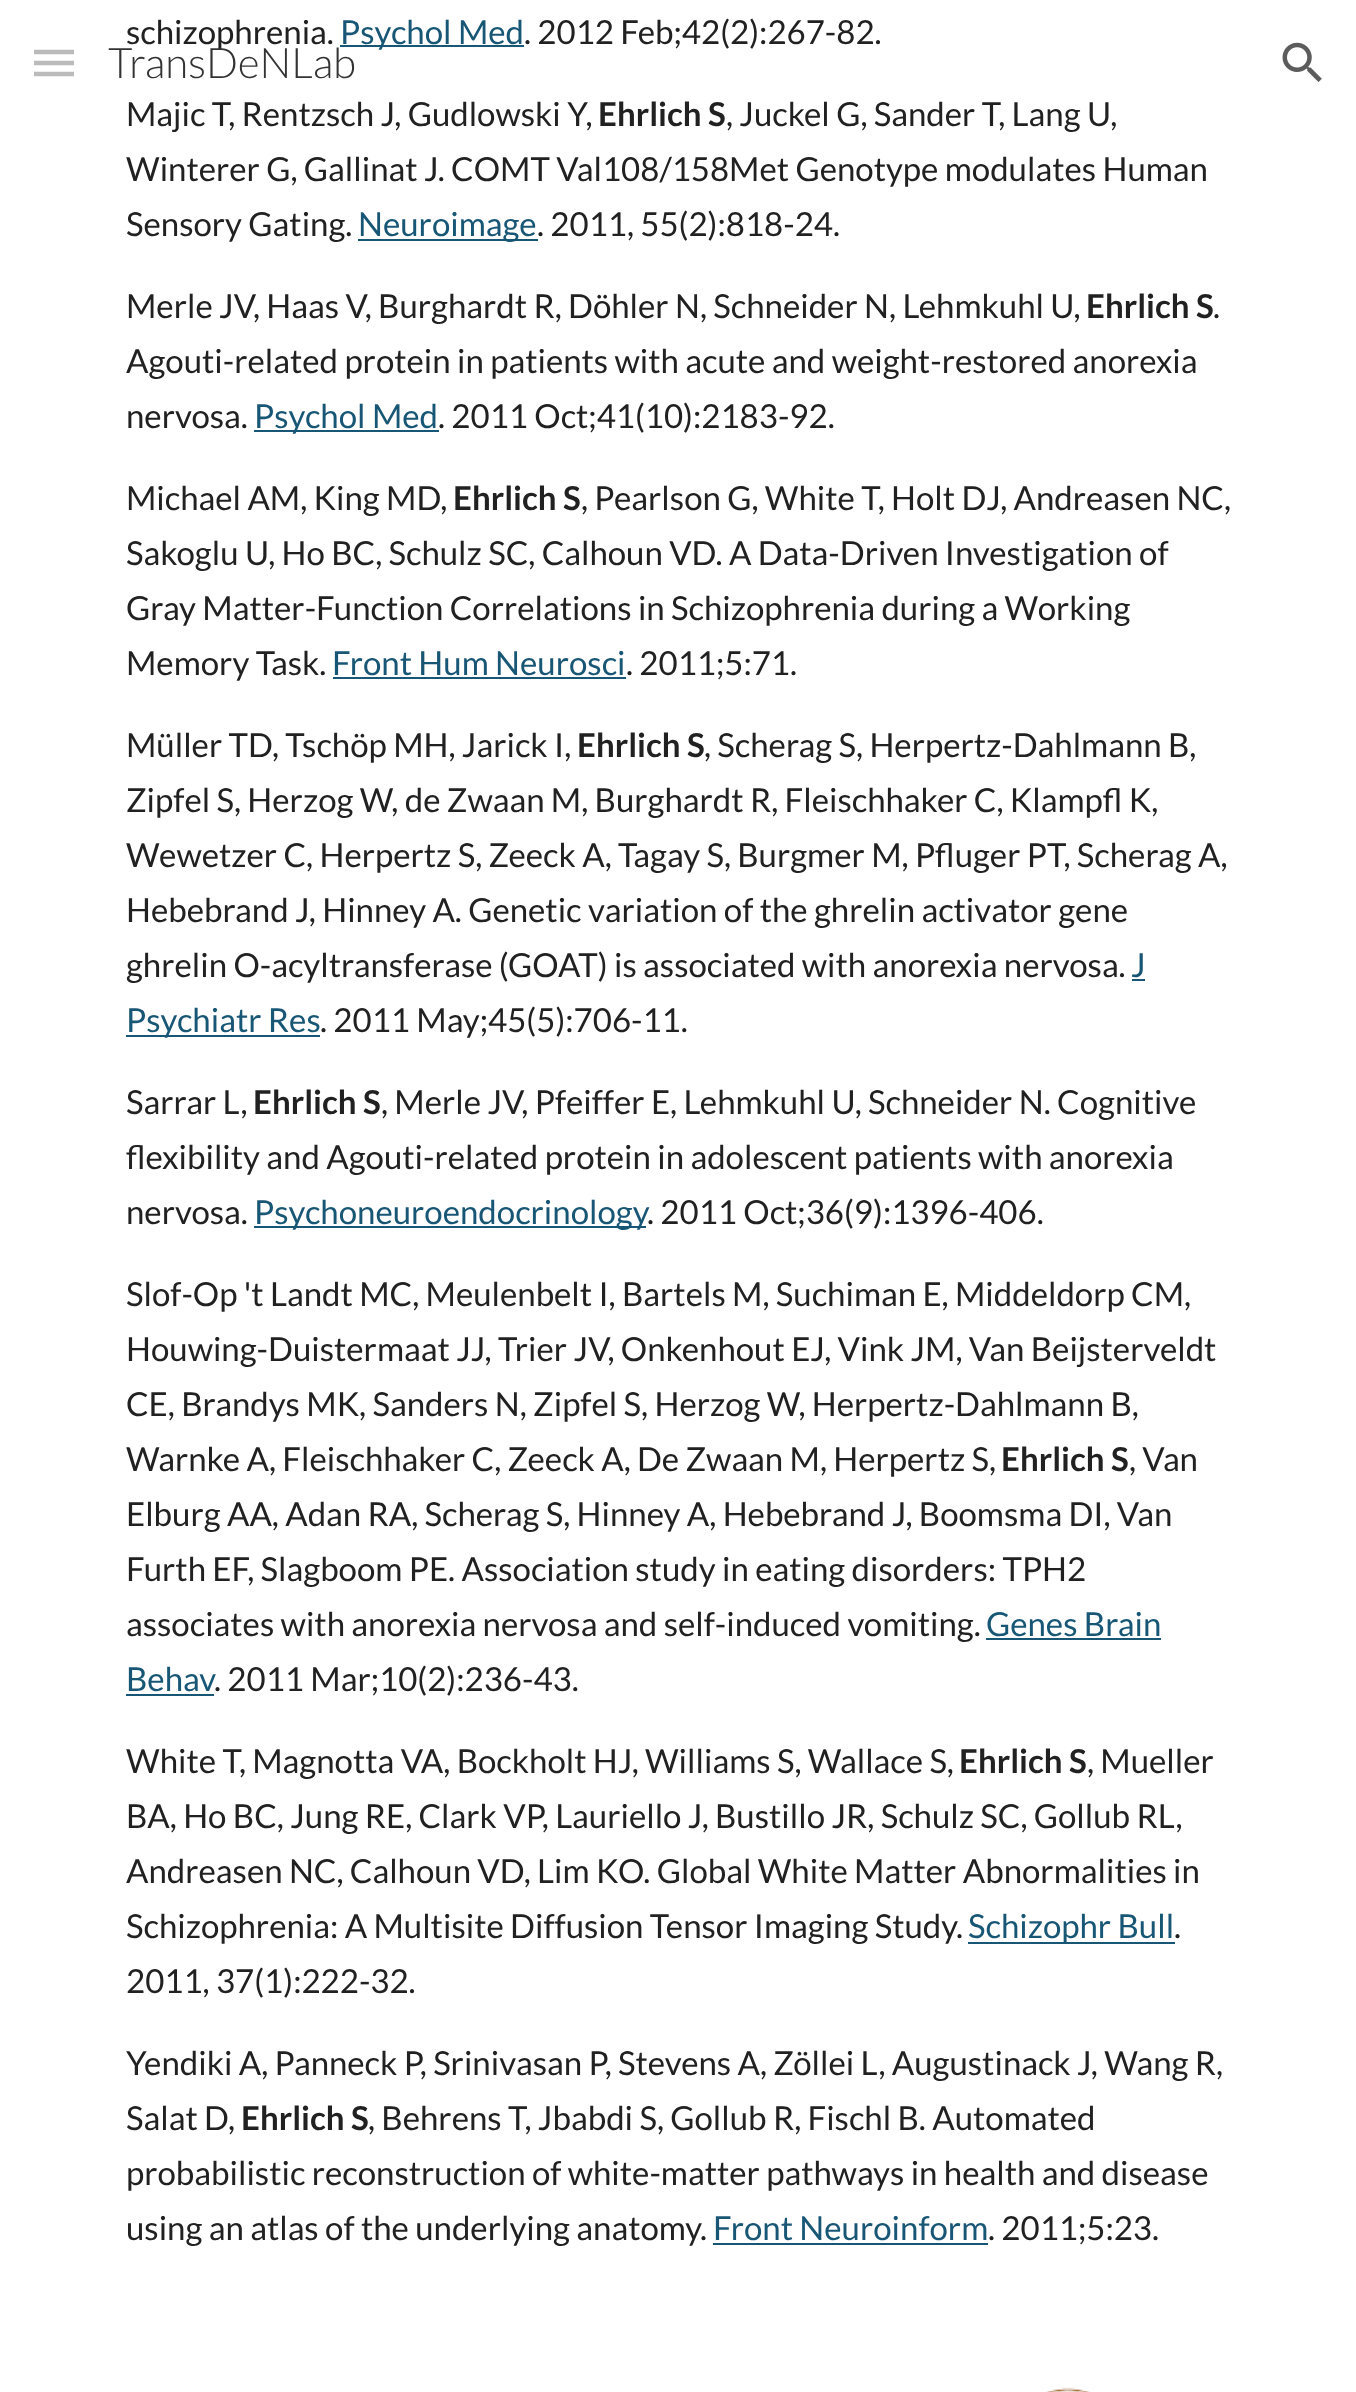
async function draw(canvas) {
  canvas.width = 1356;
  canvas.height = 2392;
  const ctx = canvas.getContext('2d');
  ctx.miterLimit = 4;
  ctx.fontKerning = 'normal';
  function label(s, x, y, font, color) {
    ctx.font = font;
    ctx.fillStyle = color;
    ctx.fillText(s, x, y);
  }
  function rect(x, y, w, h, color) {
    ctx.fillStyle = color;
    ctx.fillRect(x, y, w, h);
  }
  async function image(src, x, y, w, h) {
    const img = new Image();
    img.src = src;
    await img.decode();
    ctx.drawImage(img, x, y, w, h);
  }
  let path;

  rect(0, 0, 1356, 2392, '#fff');
  label('schizophrenia.', 126, 44, '33px Lato', '#212121');
  rect(340, 45, 184, 2, '#185676');
  label('Psychol Med', 340, 44, '33px Lato', '#185676');
  label('. 2012 Feb;42(2):267-82.', 524, 44, '33px Lato', '#212121');
  label('Majic T, Rentzsch J, Gudlowski Y,', 126, 126, '33px Lato', '#212121');
  label('Ehrlich S', 598, 126, 'bold 33px Lato', '#212121');
  label(', Juckel G, Sander T, Lang U,', 726, 126, '33px Lato', '#212121');
  label('Winterer G, Gallinat J. COMT Val108/158Met Genotype modulates Human', 126, 181, '33px Lato', '#212121');
  label('Sensory Gating.', 126, 236, '33px Lato', '#212121');
  rect(358, 239, 180, 2, '#185676');
  label('Neuroimage', 358, 236, '33px Lato', '#185676');
  label('. 2011, 55(2):818-24.', 537, 236, '33px Lato', '#212121');
  label('Merle JV, Haas V, Burghardt R, Döhler N, Schneider N, Lehmkuhl U,', 126, 318, '33px Lato', '#212121');
  label('Ehrlich S', 1086, 318, 'bold 33px Lato', '#212121');
  label('.', 1213, 318, '33px Lato', '#212121');
  label('Agouti-related protein in patients with acute and weight-restored anorexia', 126, 373, '33px Lato', '#212121');
  label('nervosa.', 126, 428, '33px Lato', '#212121');
  rect(254, 430, 185, 2, '#185676');
  label('Psychol Med', 254, 428, '33px Lato', '#185676');
  label('. 2011 Oct;41(10):2183-92.', 438, 428, '33px Lato', '#212121');
  label('Michael AM, King MD,', 126, 510, '33px Lato', '#212121');
  label('Ehrlich S', 453, 510, 'bold 33px Lato', '#212121');
  label(', Pearlson G, White T, Holt DJ, Andreasen NC,', 581, 510, '33px Lato', '#212121');
  label('Sakoglu U, Ho BC, Schulz SC, Calhoun VD. A Data-Driven Investigation of', 126, 565, '33px Lato', '#212121');
  label('Gray Matter-Function Correlations in Schizophrenia during a Working', 126, 620, '33px Lato', '#212121');
  label('Memory Task.', 126, 675, '33px Lato', '#212121');
  label('Front Hum Neurosci', 332, 675, '33px Lato', '#185676');
  rect(333, 677, 293, 2, '#185676');
  label('. 2011;5:71.', 626, 675, '33px Lato', '#212121');
  label('Müller TD, Tschöp MH, Jarick I,', 126, 757, '33px Lato', '#212121');
  label('Ehrlich S', 577, 757, 'bold 33px Lato', '#212121');
  label(', Scherag S, Herpertz-Dahlmann B,', 704, 757, '33px Lato', '#212121');
  label('Zipfel S, Herzog W, de Zwaan M, Burghardt R, Fleischhaker C, Klampfl K,', 126, 812, '33px Lato', '#212121');
  label('Wewetzer C, Herpertz S, Zeeck A, Tagay S, Burgmer M, Pfluger PT, Scherag A,', 126, 867, '33px Lato', '#212121');
  label('Hebebrand J, Hinney A. Genetic variation of the ghrelin activator gene', 126, 922, '33px Lato', '#212121');
  label('ghrelin O-acyltransferase (GOAT) is associated with anorexia nervosa.', 126, 977, '33px Lato', '#212121');
  label('J', 1131, 977, '33px Lato', '#185676');
  rect(1132, 979, 13, 2, '#185676');
  rect(126, 1035, 194, 2, '#185676');
  label('Psychiatr Res', 126, 1032, '33px Lato', '#185676');
  label('. 2011 May;45(5):706-11.', 320, 1032, '33px Lato', '#212121');
  label('Sarrar L,', 126, 1114, '33px Lato', '#212121');
  label('Ehrlich S', 253, 1114, 'bold 33px Lato', '#212121');
  label(', Merle JV, Pfeiffer E, Lehmkuhl U, Schneider N. Cognitive', 381, 1114, '33px Lato', '#212121');
  label('flexibility and Agouti-related protein in adolescent patients with anorexia', 126, 1169, '33px Lato', '#212121');
  label('nervosa.', 126, 1224, '33px Lato', '#212121');
  rect(254, 1226, 392, 2, '#185676');
  label('Psychoneuroendocrinology', 254, 1224, '33px Lato', '#185676');
  label('. 2011 Oct;36(9):1396-406.', 647, 1224, '33px Lato', '#212121');
  label('Slof-Op \'t Landt MC, Meulenbelt I, Bartels M, Suchiman E, Middeldorp CM,', 126, 1306, '33px Lato', '#212121');
  label('Houwing-Duistermaat JJ, Trier JV, Onkenhout EJ, Vink JM, Van Beijsterveldt', 126, 1361, '33px Lato', '#212121');
  label('CE, Brandys MK, Sanders N, Zipfel S, Herzog W, Herpertz-Dahlmann B,', 126, 1416, '33px Lato', '#212121');
  label('Warnke A, Fleischhaker C, Zeeck A, De Zwaan M, Herpertz S,', 126, 1471, '33px Lato', '#212121');
  label('Ehrlich S', 1001, 1471, 'bold 33px Lato', '#212121');
  label(', Van', 1129, 1471, '33px Lato', '#212121');
  label('Elburg AA, Adan RA, Scherag S, Hinney A, Hebebrand J, Boomsma DI, Van', 126, 1526, '33px Lato', '#212121');
  label('Furth EF, Slagboom PE. Association study in eating disorders: TPH2', 126, 1581, '33px Lato', '#212121');
  label('associates with anorexia nervosa and self-induced vomiting.', 126, 1636, '33px Lato', '#212121');
  label('Genes Brain', 986, 1636, '33px Lato', '#185676');
  rect(986, 1638, 175, 2, '#185676');
  label('Behav', 126, 1691, '33px Lato', '#185676');
  rect(126, 1694, 88, 2, '#185676');
  label('. 2011 Mar;10(2):236-43.', 214, 1691, '33px Lato', '#212121');
  label('White T, Magnotta VA, Bockholt HJ, Williams S, Wallace S,', 126, 1773, '33px Lato', '#212121');
  label('Ehrlich S', 959, 1773, 'bold 33px Lato', '#212121');
  label(', Mueller', 1087, 1773, '33px Lato', '#212121');
  label('BA, Ho BC, Jung RE, Clark VP, Lauriello J, Bustillo JR, Schulz SC, Gollub RL,', 126, 1828, '33px Lato', '#212121');
  label('Andreasen NC, Calhoun VD, Lim KO. Global White Matter Abnormalities in', 126, 1883, '33px Lato', '#212121');
  label('Schizophrenia: A Multisite Diffusion Tensor Imaging Study.', 126, 1938, '33px Lato', '#212121');
  rect(968, 1942, 207, 2, '#185676');
  label('Schizophr Bull', 968, 1938, '33px Lato', '#185676');
  label('.', 1174, 1938, '33px Lato', '#212121');
  label('2011, 37(1):222-32.', 126, 1993, '33px Lato', '#212121');
  label('Yendiki A, Panneck P, Srinivasan P, Stevens A, Zöllei L, Augustinack J, Wang R,', 126, 2075, '33px Lato', '#212121');
  label('Salat D,', 126, 2130, '33px Lato', '#212121');
  label('Ehrlich S', 241, 2130, 'bold 33px Lato', '#212121');
  label(', Behrens T, Jbabdi S, Gollub R, Fischl B. Automated', 368, 2130, '33px Lato', '#212121');
  label('probabilistic reconstruction of white-matter pathways in health and disease', 126, 2185, '33px Lato', '#212121');
  label('using an atlas of the underlying anatomy.', 126, 2240, '33px Lato', '#212121');
  label('Front Neuroinform', 713, 2240, '33px Lato', '#185676');
  rect(713, 2243, 275, 2, '#185676');
  label('. 2011;5:23.', 988, 2240, '33px Lato', '#212121');
  path = new Path2D('M34 52H74M34 63H74M34 74H74');
  ctx.strokeStyle = '#bbb';
  ctx.lineWidth = 4.5;
  ctx.stroke(path);
  label('TransDeNLab', 108, 78, '300 42px Lato', '#333');
  await image('assets/img1.png', 1282, 42, 40, 40);
  await image('assets/img2.png', 1046, 2387, 44, 5);
}

draw(document.querySelector('canvas'));
